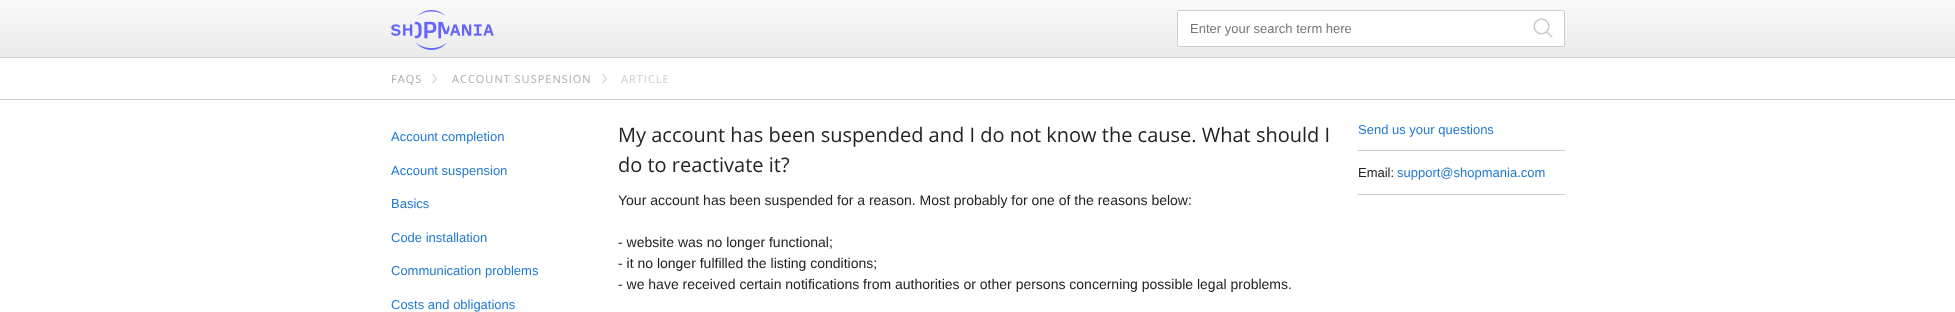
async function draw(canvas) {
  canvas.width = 1955;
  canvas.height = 312;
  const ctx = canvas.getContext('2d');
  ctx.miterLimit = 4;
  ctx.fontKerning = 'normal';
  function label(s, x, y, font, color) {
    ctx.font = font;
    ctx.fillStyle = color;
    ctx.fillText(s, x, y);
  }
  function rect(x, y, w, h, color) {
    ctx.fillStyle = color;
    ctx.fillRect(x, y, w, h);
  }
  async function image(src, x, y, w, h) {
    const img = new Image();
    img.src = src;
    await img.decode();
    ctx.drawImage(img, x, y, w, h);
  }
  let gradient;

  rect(0, 0, 1955, 312, '#fff');
  gradient = ctx.createLinearGradient(978, 0, 978, 57);
  gradient.addColorStop(0, '#fafafa');
  gradient.addColorStop(1, '#eaeaea');
  ctx.fillStyle = gradient;
  ctx.fillRect(0, 0, 1955, 57);
  rect(0, 57, 1955, 1, '#ccc');
  await image('assets/img1.png', 391, 10, 103, 40);
  ctx.fillStyle = '#fff';
  ctx.beginPath();
  ctx.roundRect(1177.5, 10.5, 387, 36, 1.5);
  ctx.fill();
  ctx.strokeStyle = '#ccc';
  ctx.stroke();
  label('Enter your search term here', 1190, 33, '13px Liberation Sans', '#757575');
  await image('assets/img2.png', 1533, 18, 20, 20);
  rect(0, 99, 1955, 1, '#ccc');
  ctx.letterSpacing = '1px';
  label('FAQS', 391, 83, '11px Open Sans', '#aaa');
  ctx.letterSpacing = '3px';
  label('›', 431, 85, '24px Open Sans', '#ddd');
  ctx.letterSpacing = '1px';
  label('ACCOUNT SUSPENSION', 452, 83, '11px Open Sans', '#aaa');
  ctx.letterSpacing = '3px';
  label('›', 601, 85, '24px Open Sans', '#ddd');
  ctx.letterSpacing = '1px';
  label('ARTICLE', 621, 83, '11px Open Sans', '#ccc');
  ctx.letterSpacing = '0px';
  label('Account completion', 391, 141, '13px Liberation Sans', '#2079d2');
  label('Account suspension', 391, 175, '13px Liberation Sans', '#2079d2');
  label('Basics', 391, 208, '13px Liberation Sans', '#2079d2');
  label('Code installation', 391, 242, '13px Liberation Sans', '#2079d2');
  label('Communication problems', 391, 275, '13px Liberation Sans', '#2079d2');
  label('Costs and obligations', 391, 309, '13px Liberation Sans', '#2079d2');
  label('My account has been suspended and I do not know the cause. What should I', 618, 142, '20px Open Sans', '#222');
  label('do to reactivate it?', 618, 172, '20px Open Sans', '#222');
  label('Your account has been suspended for a reason. Most probably for one of the reasons below:', 618, 205, '14px Liberation Sans', '#222');
  label('- website was no longer functional;', 618, 247, '14px Liberation Sans', '#222');
  label('- it no longer fulfilled the listing conditions;', 618, 268, '14px Liberation Sans', '#222');
  label('- we have received certain notifications from authorities or other persons concerning possible legal problems.', 618, 289, '14px Liberation Sans', '#222');
  label('Send us your questions', 1358, 134, '13px Liberation Sans', '#2079d2');
  rect(1358, 150, 207, 1, '#ccc');
  rect(1358, 194, 207, 1, '#ccc');
  label('Email:', 1358, 177, '13px Liberation Sans', '#222');
  label('support@shopmania.com', 1397, 177, '13px Liberation Sans', '#2079d2');
}

draw(document.querySelector('canvas'));
